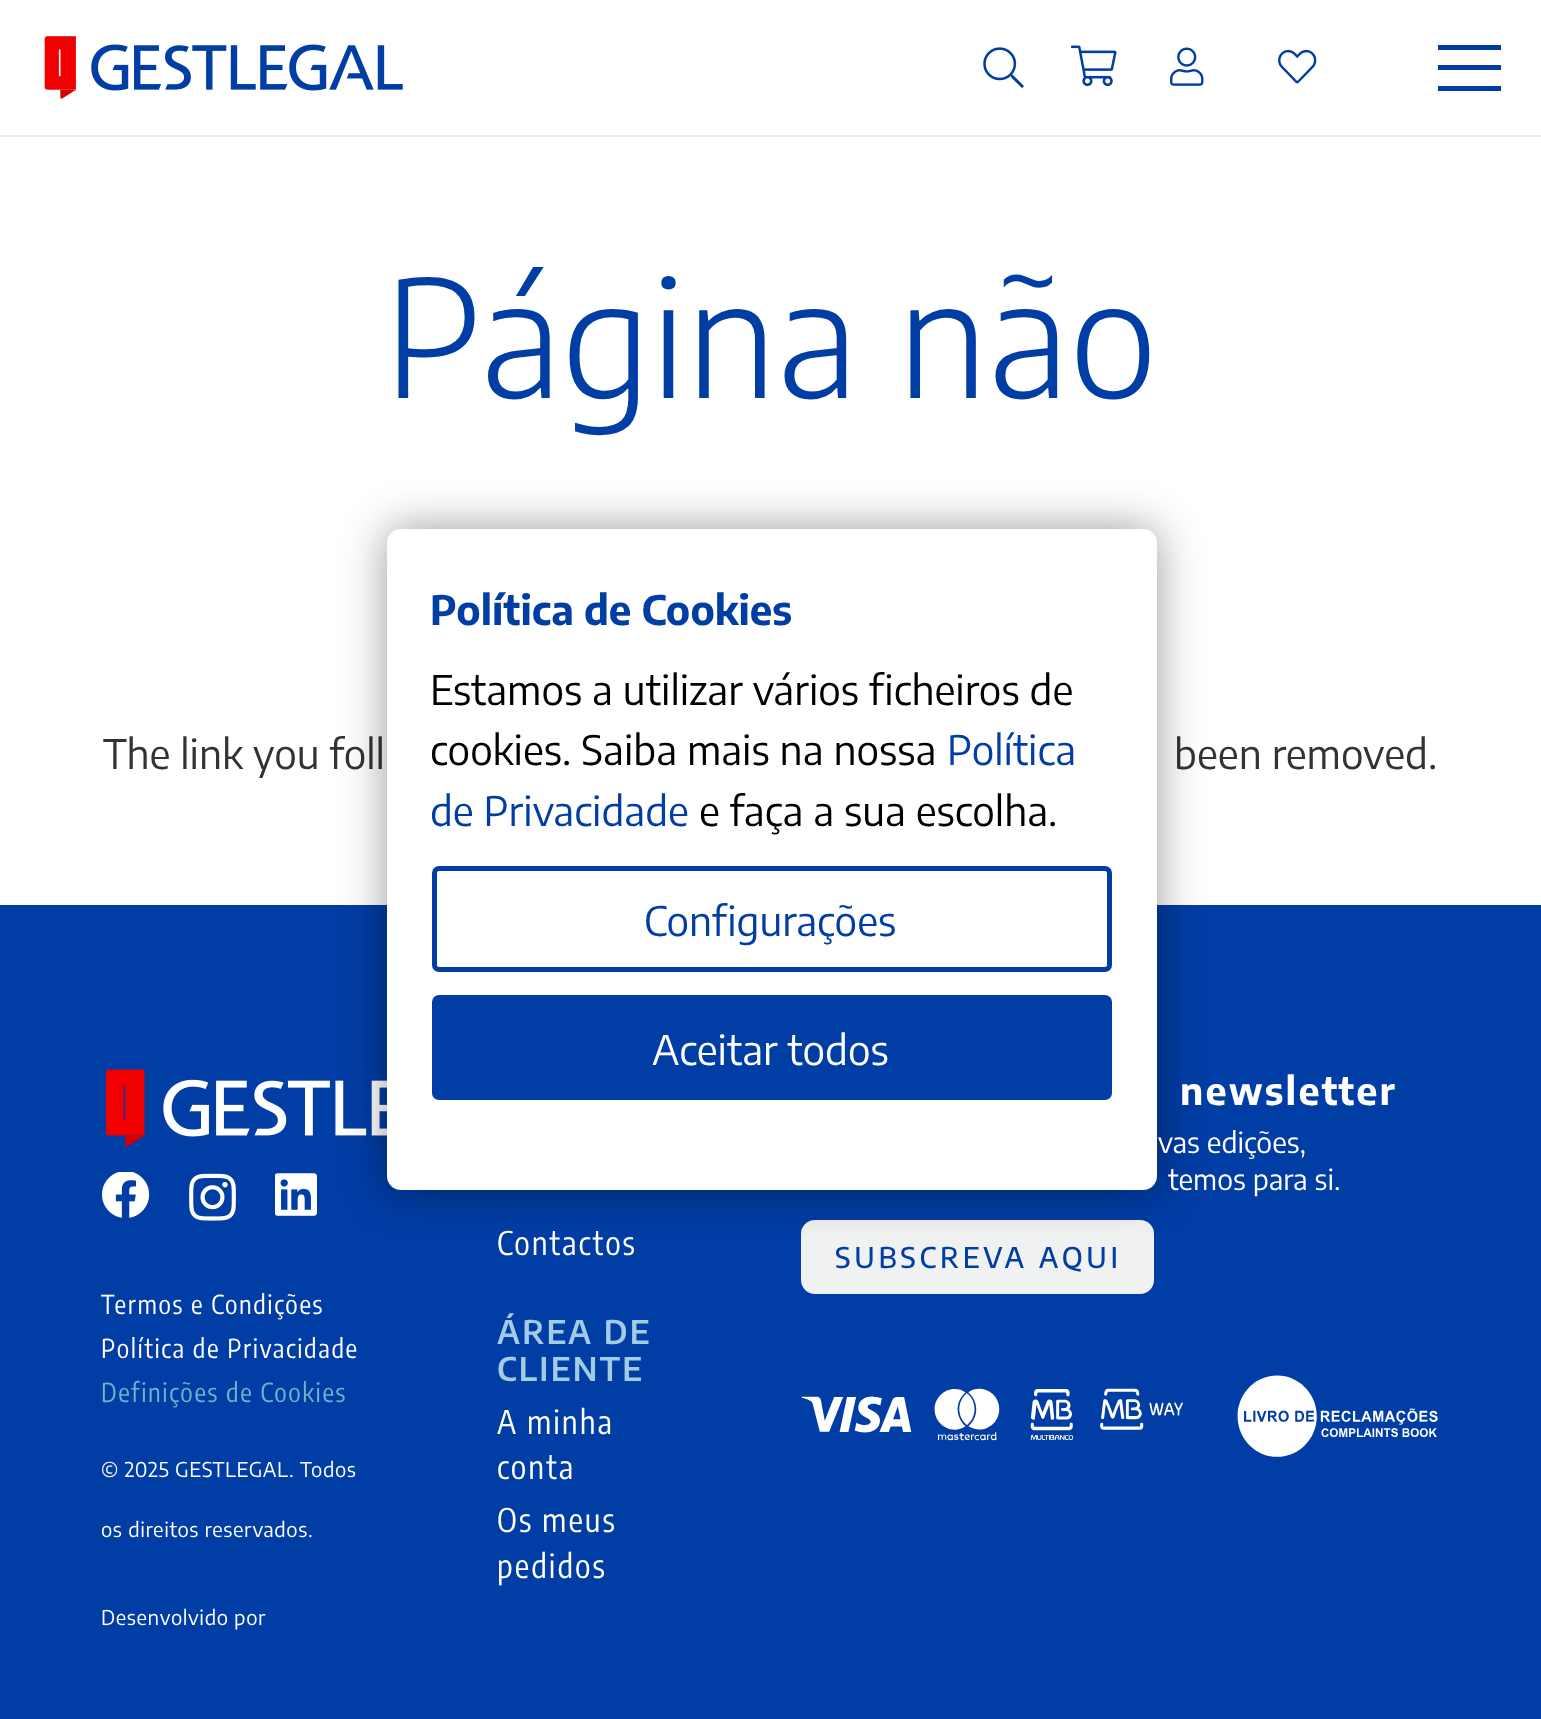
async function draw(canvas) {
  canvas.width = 1541;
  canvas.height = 1719;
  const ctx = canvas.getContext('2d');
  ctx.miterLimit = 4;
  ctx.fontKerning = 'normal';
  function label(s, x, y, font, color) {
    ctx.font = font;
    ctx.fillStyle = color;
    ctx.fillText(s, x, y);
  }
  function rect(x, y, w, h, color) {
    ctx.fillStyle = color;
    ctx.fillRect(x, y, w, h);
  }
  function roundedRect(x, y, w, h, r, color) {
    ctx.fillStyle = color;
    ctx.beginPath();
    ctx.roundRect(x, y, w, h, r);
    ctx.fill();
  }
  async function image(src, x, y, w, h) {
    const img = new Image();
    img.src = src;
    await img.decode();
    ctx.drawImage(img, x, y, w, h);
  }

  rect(0, 0, 1541, 1719, '#fff');
  rect(0, 135, 1541, 2, '#ebebeb');
  await image('assets/img1.png', 44, 36, 359, 63);
  await image('assets/img2.png', 983, 47, 41, 41);
  await image('assets/img3.png', 1071, 45, 46, 42);
  await image('assets/img4.png', 1170, 47, 34, 39);
  await image('assets/img5.png', 1278, 49, 39, 35);
  rect(1438, 65, 63, 5, '#003da5');
  rect(1438, 45, 63, 5, '#003da5');
  rect(1438, 86, 63, 5, '#003da5');
  label('Página não', 384, 398, '300 162px Encode Sans Condensed', '#003da5');
  label('The link you foll', 103, 769, '40.5px Encode Sans Condensed', '#333');
  label('been removed.', 1174, 769, '40.5px Encode Sans Condensed', '#333');
  rect(0, 905, 1541, 814, '#003da5');
  roundedRect(801, 1220, 353, 74, 14, '#f0f2f2');
  await image('assets/img8.png', 105, 1069, 282, 78);
  ctx.fillStyle = '#00000066';
  ctx.filter = 'blur(22.5px)';
  ctx.beginPath();
  ctx.roundRect(387, 529, 770, 661, 14);
  ctx.fill();
  ctx.filter = 'none';
  roundedRect(387, 529, 770, 661, 14, '#fff');
  label('Política de Cookies', 430, 625, 'bold 40.5px Encode Sans Condensed', '#003da5');
  label('Estamos a utilizar vários ficheiros de', 430, 705, '40.5px Encode Sans Condensed', '#000');
  label('cookies. Saiba mais na nossa', 430, 765, '40.5px Encode Sans Condensed', '#000');
  label('Política', 947, 765, '40.5px Encode Sans Condensed', '#003da5');
  label('de Privacidade', 430, 826, '40.5px Encode Sans Condensed', '#003da5');
  label('e faça a sua escolha.', 699, 826, '40.5px Encode Sans Condensed', '#000');
  ctx.beginPath();
  ctx.roundRect(434.5, 868.5, 675, 101, 4.5);
  ctx.strokeStyle = '#003da5';
  ctx.lineWidth = 5;
  ctx.stroke();
  label('Configurações', 644, 936, '40.5px Encode Sans Condensed', '#003da5');
  ctx.beginPath();
  ctx.roundRect(434.5, 997.5, 675, 100, 4.5);
  ctx.fill();
  ctx.stroke();
  label('Aceitar todos', 652, 1065, '40.5px Encode Sans Condensed', '#fff');
  ctx.letterSpacing = '2.25px';
  label('newsletter', 1180, 1105, 'bold 38px Encode Sans Condensed', '#fff');
  ctx.letterSpacing = '0px';
  label('vas edições,', 1158, 1153, '28.4px Encode Sans Condensed', '#fff');
  label('temos para si.', 1168, 1190, '28.4px Encode Sans Condensed', '#fff');
  ctx.letterSpacing = '3.75px';
  label('SUBSCREVA AQUI', 835, 1268, '500 28.4px Encode Sans Condensed', '#003da5');
  await image('assets/img6.png', 801, 1388, 382, 53);
  await image('assets/img7.png', 1237, 1375, 201, 82);
  await image('assets/img9.png', 102, 1172, 48, 46);
  await image('assets/img10.png', 189, 1173, 47, 48);
  await image('assets/img11.png', 275, 1173, 42, 43);
  ctx.letterSpacing = '1.6px';
  label('Termos e Condições', 101, 1314, '26px "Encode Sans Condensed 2"', '#fff');
  label('Política de Privacidade', 101, 1358, '26px "Encode Sans Condensed 2"', '#fff');
  label('Definições de Cookies', 101, 1402, '26px "Encode Sans Condensed 2"', '#74b0cb');
  ctx.letterSpacing = '0.6px';
  label('© 2025 GESTLEGAL. Todos', 101, 1477, '20.25px Encode Sans Condensed', '#fff');
  label('os direitos reservados.', 101, 1537, '20.25px Encode Sans Condensed', '#fff');
  label('Desenvolvido por', 101, 1625, '20.25px Encode Sans Condensed', '#fff');
  ctx.letterSpacing = '2px';
  label('Contactos', 497, 1255, '32.5px "Encode Sans Condensed 2"', '#fff');
  ctx.letterSpacing = '2.25px';
  label('ÁREA DE', 497, 1344, '600 32.5px Encode Sans Condensed', '#a1cce4');
  label('CLIENTE', 497, 1381, '600 32.5px Encode Sans Condensed', '#a1cce4');
  ctx.letterSpacing = '2px';
  label('A minha', 497, 1434, '32.5px "Encode Sans Condensed 2"', '#fff');
  label('conta', 497, 1479, '32.5px "Encode Sans Condensed 2"', '#fff');
  label('Os meus', 497, 1532, '32.5px "Encode Sans Condensed 2"', '#fff');
  label('pedidos', 497, 1578, '32.5px "Encode Sans Condensed 2"', '#fff');
}

draw(document.querySelector('canvas'));
